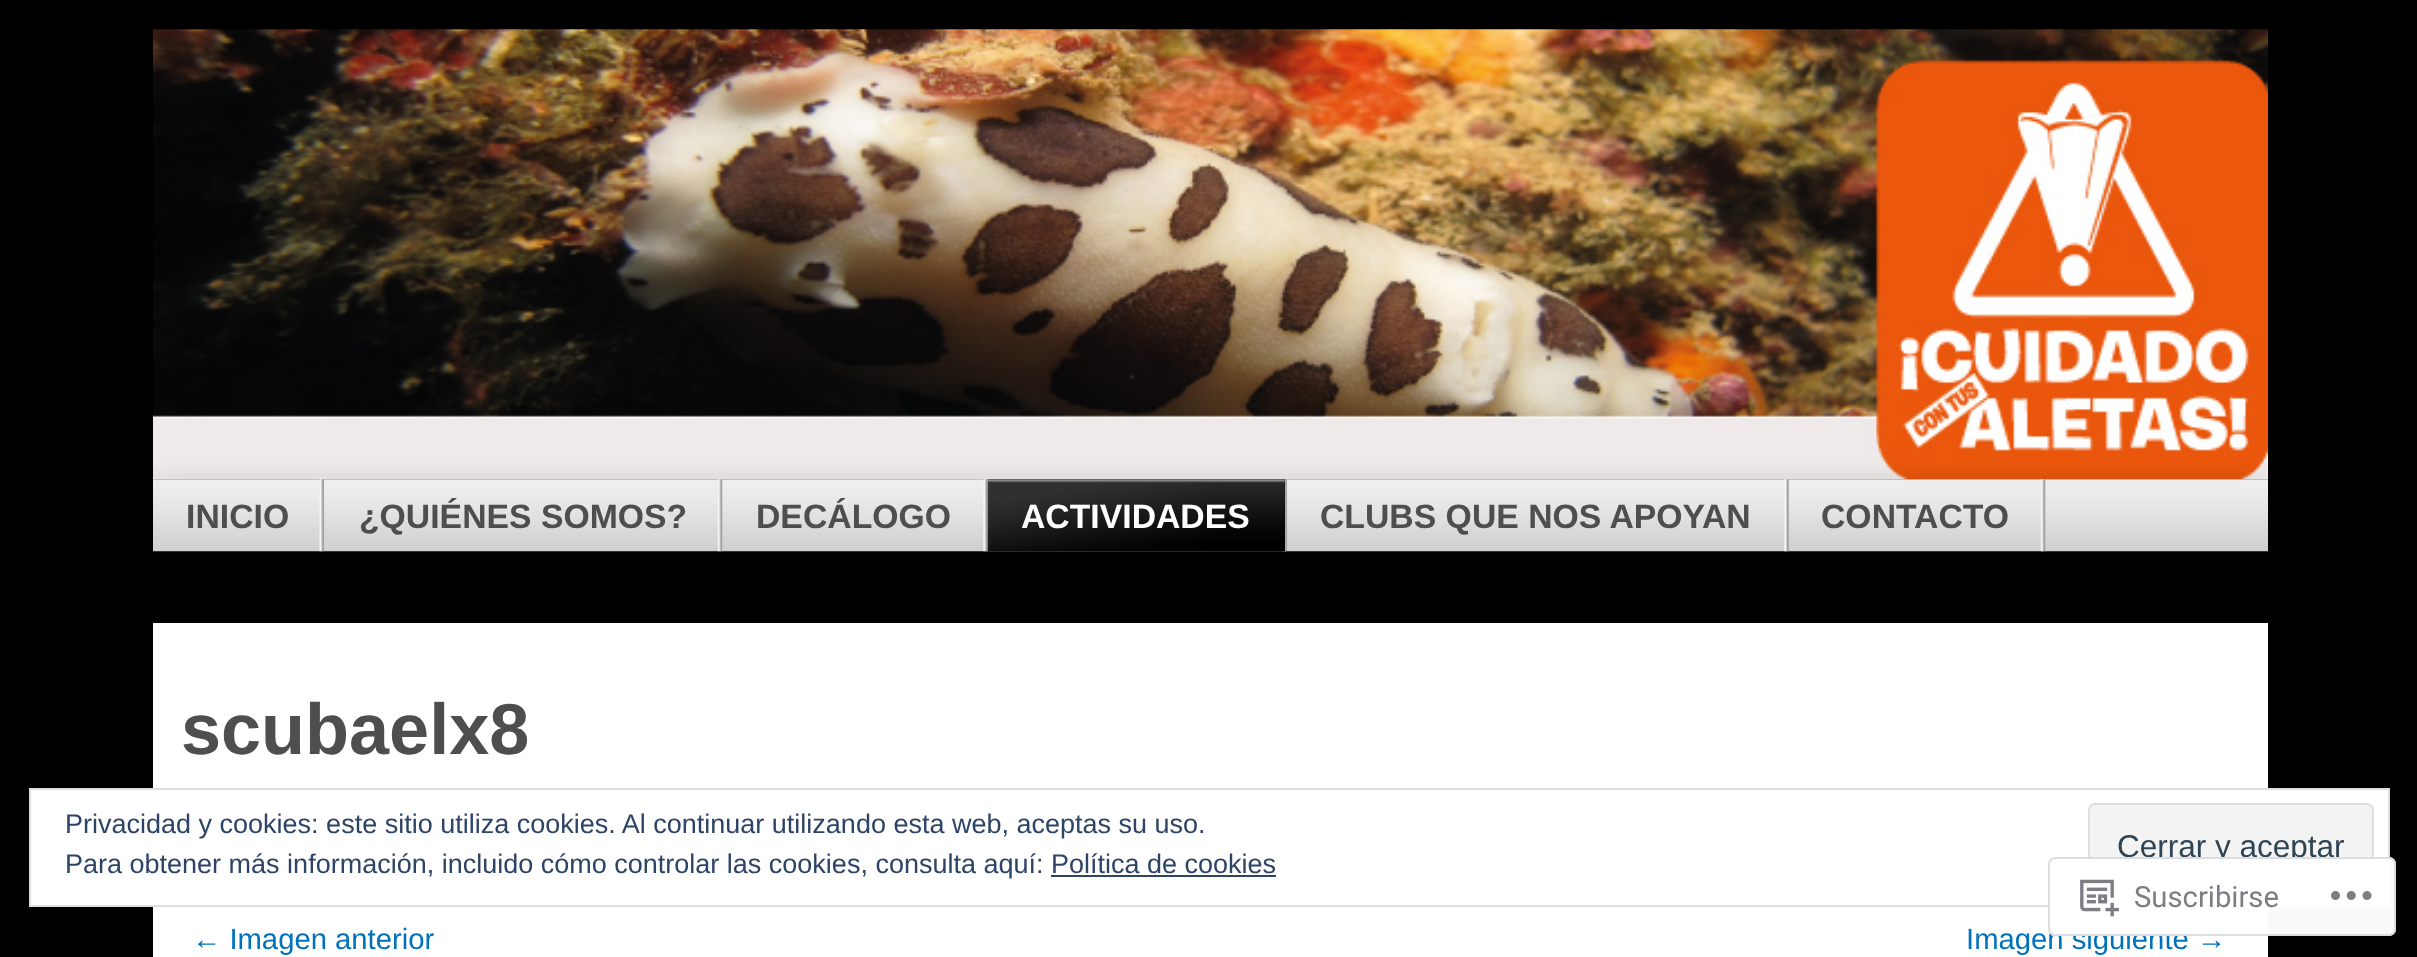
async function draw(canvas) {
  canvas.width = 2417;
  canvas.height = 957;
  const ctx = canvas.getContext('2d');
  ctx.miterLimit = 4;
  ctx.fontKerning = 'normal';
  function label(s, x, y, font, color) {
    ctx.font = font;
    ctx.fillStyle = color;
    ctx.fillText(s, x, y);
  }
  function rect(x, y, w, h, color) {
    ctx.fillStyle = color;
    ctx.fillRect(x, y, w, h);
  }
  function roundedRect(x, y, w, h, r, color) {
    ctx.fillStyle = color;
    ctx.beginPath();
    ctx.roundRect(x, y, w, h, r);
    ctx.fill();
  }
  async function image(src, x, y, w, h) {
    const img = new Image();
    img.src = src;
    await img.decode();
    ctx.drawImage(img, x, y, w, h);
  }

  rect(0, 0, 2417, 957, '#000');
  await image('assets/img1.png', 153, 29, 2115, 451);
  ctx.fillStyle = '#00000099';
  ctx.filter = 'blur(16px)';
  ctx.beginPath();
  ctx.rect(153, 497, 2115, 72);
  ctx.fill();
  ctx.filter = 'none';
  await image('assets/img2.png', 153, 479, 2115, 73);
  await image('assets/img3.png', 319, 479, 5, 73);
  label('INICIO', 186, 528, 'bold 33.75px Liberation Sans', '#4e4e4e');
  await image('assets/img4.png', 717, 479, 6, 73);
  label('¿QUIÉNES SOMOS?', 359, 528, 'bold 33.75px Liberation Sans', '#4e4e4e');
  await image('assets/img5.png', 983, 479, 5, 73);
  label('DECÁLOGO', 756, 528, 'bold 33.75px Liberation Sans', '#4e4e4e');
  await image('assets/img3.png', 1282, 479, 5, 73);
  rect(988, 479, 297, 72, '#000');
  await image('assets/img6.png', 987, 479, 298, 73);
  label('ACTIVIDADES', 1021, 528, 'bold 33.75px Liberation Sans', '#fff');
  await image('assets/img7.png', 1784, 479, 5, 73);
  label('CLUBS QUE NOS APOYAN', 1320, 528, 'bold 33.75px Liberation Sans', '#4e4e4e');
  await image('assets/img4.png', 2040, 479, 6, 73);
  label('CONTACTO', 1821, 528, 'bold 33.75px Liberation Sans', '#4e4e4e');
  rect(153, 623, 2115, 334, '#fff');
  label('scubaelx8', 181, 754, 'bold 72px Liberation Sans', '#4e4e4e');
  label('← Imagen anterior', 192, 949, '29.25px Liberation Sans', '#0071bb');
  label('Imagen siguiente →', 1966, 949, '29.25px Liberation Sans', '#0071bb');
  ctx.fillStyle = '#fff';
  ctx.beginPath();
  ctx.rect(30, 789, 2359, 117);
  ctx.fill();
  ctx.strokeStyle = '#dedede';
  ctx.lineWidth = 2;
  ctx.stroke();
  label('Privacidad y cookies: este sitio utiliza cookies. Al continuar utilizando esta web, aceptas su uso.', 65, 833, '27px Liberation Sans', '#2e4467');
  label('Para obtener más información, incluido cómo controlar las cookies, consulta aquí: Política de cookies', 65, 873, '27px Liberation Sans', '#2e4467');
  ctx.fillStyle = '#f3f3f3';
  ctx.beginPath();
  ctx.roundRect(2089, 804, 284, 86, 6);
  ctx.fill();
  ctx.stroke();
  label('Cerrar y aceptar', 2117, 857, '31.5px Liberation Sans', '#2e4453');
  rect(1051, 875, 225, 2, '#2e4467');
  roundedRect(2048, 857, 348, 79, 7, '#fffffffa');
  ctx.beginPath();
  ctx.roundRect(2049, 858, 346, 77, 6);
  ctx.strokeStyle = '#dcdcdefa';
  ctx.stroke();
  await image('assets/img8.png', 2080, 879, 39, 38);
  label('Suscribirse', 2134, 907, '29.25px Roboto', '#7b7f84');
  await image('assets/img9.png', 2331, 891, 41, 9);
}

draw(document.querySelector('canvas'));
